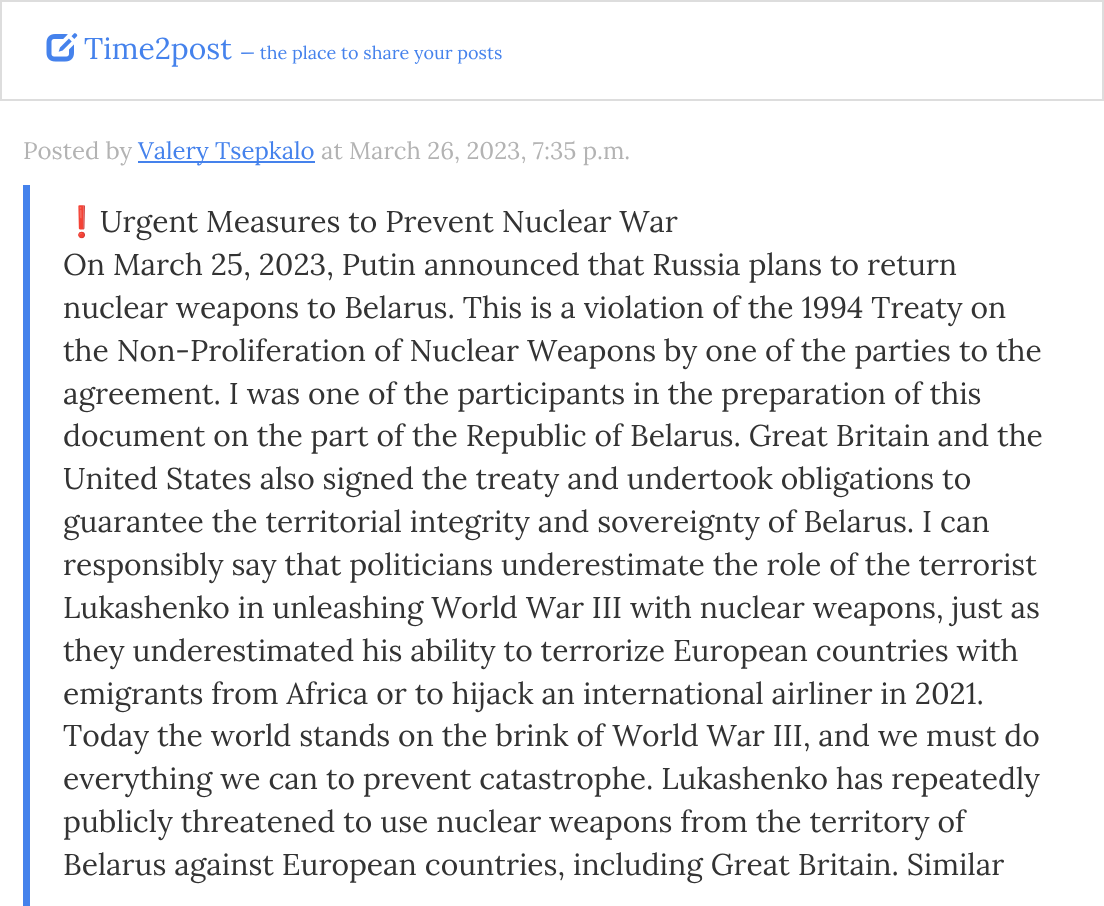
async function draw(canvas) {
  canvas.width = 1104;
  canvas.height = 906;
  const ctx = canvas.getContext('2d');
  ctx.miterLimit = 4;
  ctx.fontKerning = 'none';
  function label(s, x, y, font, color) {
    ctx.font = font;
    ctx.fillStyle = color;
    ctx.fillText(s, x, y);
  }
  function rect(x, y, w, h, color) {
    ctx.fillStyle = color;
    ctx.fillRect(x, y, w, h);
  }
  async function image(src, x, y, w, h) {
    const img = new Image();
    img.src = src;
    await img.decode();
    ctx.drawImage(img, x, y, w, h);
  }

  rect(0, 0, 1104, 906, '#fff');
  ctx.strokeStyle = '#ddd';
  ctx.lineWidth = 2;
  ctx.strokeRect(1, 1, 1102, 99);
  await image('assets/img1.png', 46, 33, 32, 29);
  label('Time2post', 84, 59, '30px Lora', '#4582ec');
  label('— the place to share your posts', 240, 59, '18px Lora', '#4582ec');
  label('Posted by', 23, 159, '24px Lora', '#b3b3b3');
  rect(138, 161, 177, 2, '#4582ec');
  label('Valery Tsepkalo', 138, 159, '24px Lora', '#4582ec');
  label('at March 26, 2023, 7:35 p.m.', 321, 159, '24px Lora', '#b3b3b3');
  rect(23, 185, 7, 721, '#4582ec');
  label('❗', 63, 232, '30px Noto Color Emoji', '#333');
  label('Urgent Measures to Prevent Nuclear War', 100, 232, '30px Lora', '#333');
  label('On March 25, 2023, Putin announced that Russia plans to return', 63, 275, '30px Lora', '#333');
  label('nuclear weapons to Belarus. This is a violation of the 1994 Treaty on', 63, 318, '30px Lora', '#333');
  label('the Non-Proliferation of Nuclear Weapons by one of the parties to the', 63, 361, '30px Lora', '#333');
  label('agreement. I was one of the participants in the preparation of this', 63, 404, '30px Lora', '#333');
  label('document on the part of the Republic of Belarus. Great Britain and the', 63, 446, '30px Lora', '#333');
  label('United States also signed the treaty and undertook obligations to', 63, 489, '30px Lora', '#333');
  label('guarantee the territorial integrity and sovereignty of Belarus. I can', 63, 532, '30px Lora', '#333');
  label('responsibly say that politicians underestimate the role of the terrorist', 63, 575, '30px Lora', '#333');
  label('Lukashenko in unleashing World War III with nuclear weapons, just as', 63, 618, '30px Lora', '#333');
  label('they underestimated his ability to terrorize European countries with', 63, 661, '30px Lora', '#333');
  label('emigrants from Africa or to hijack an international airliner in 2021.', 63, 704, '30px Lora', '#333');
  label('Today the world stands on the brink of World War III, and we must do', 63, 746, '30px Lora', '#333');
  label('everything we can to prevent catastrophe. Lukashenko has repeatedly', 63, 789, '30px Lora', '#333');
  label('publicly threatened to use nuclear weapons from the territory of', 63, 832, '30px Lora', '#333');
  label('Belarus against European countries, including Great Britain. Similar', 63, 875, '30px Lora', '#333');
}

draw(document.querySelector('canvas'));
